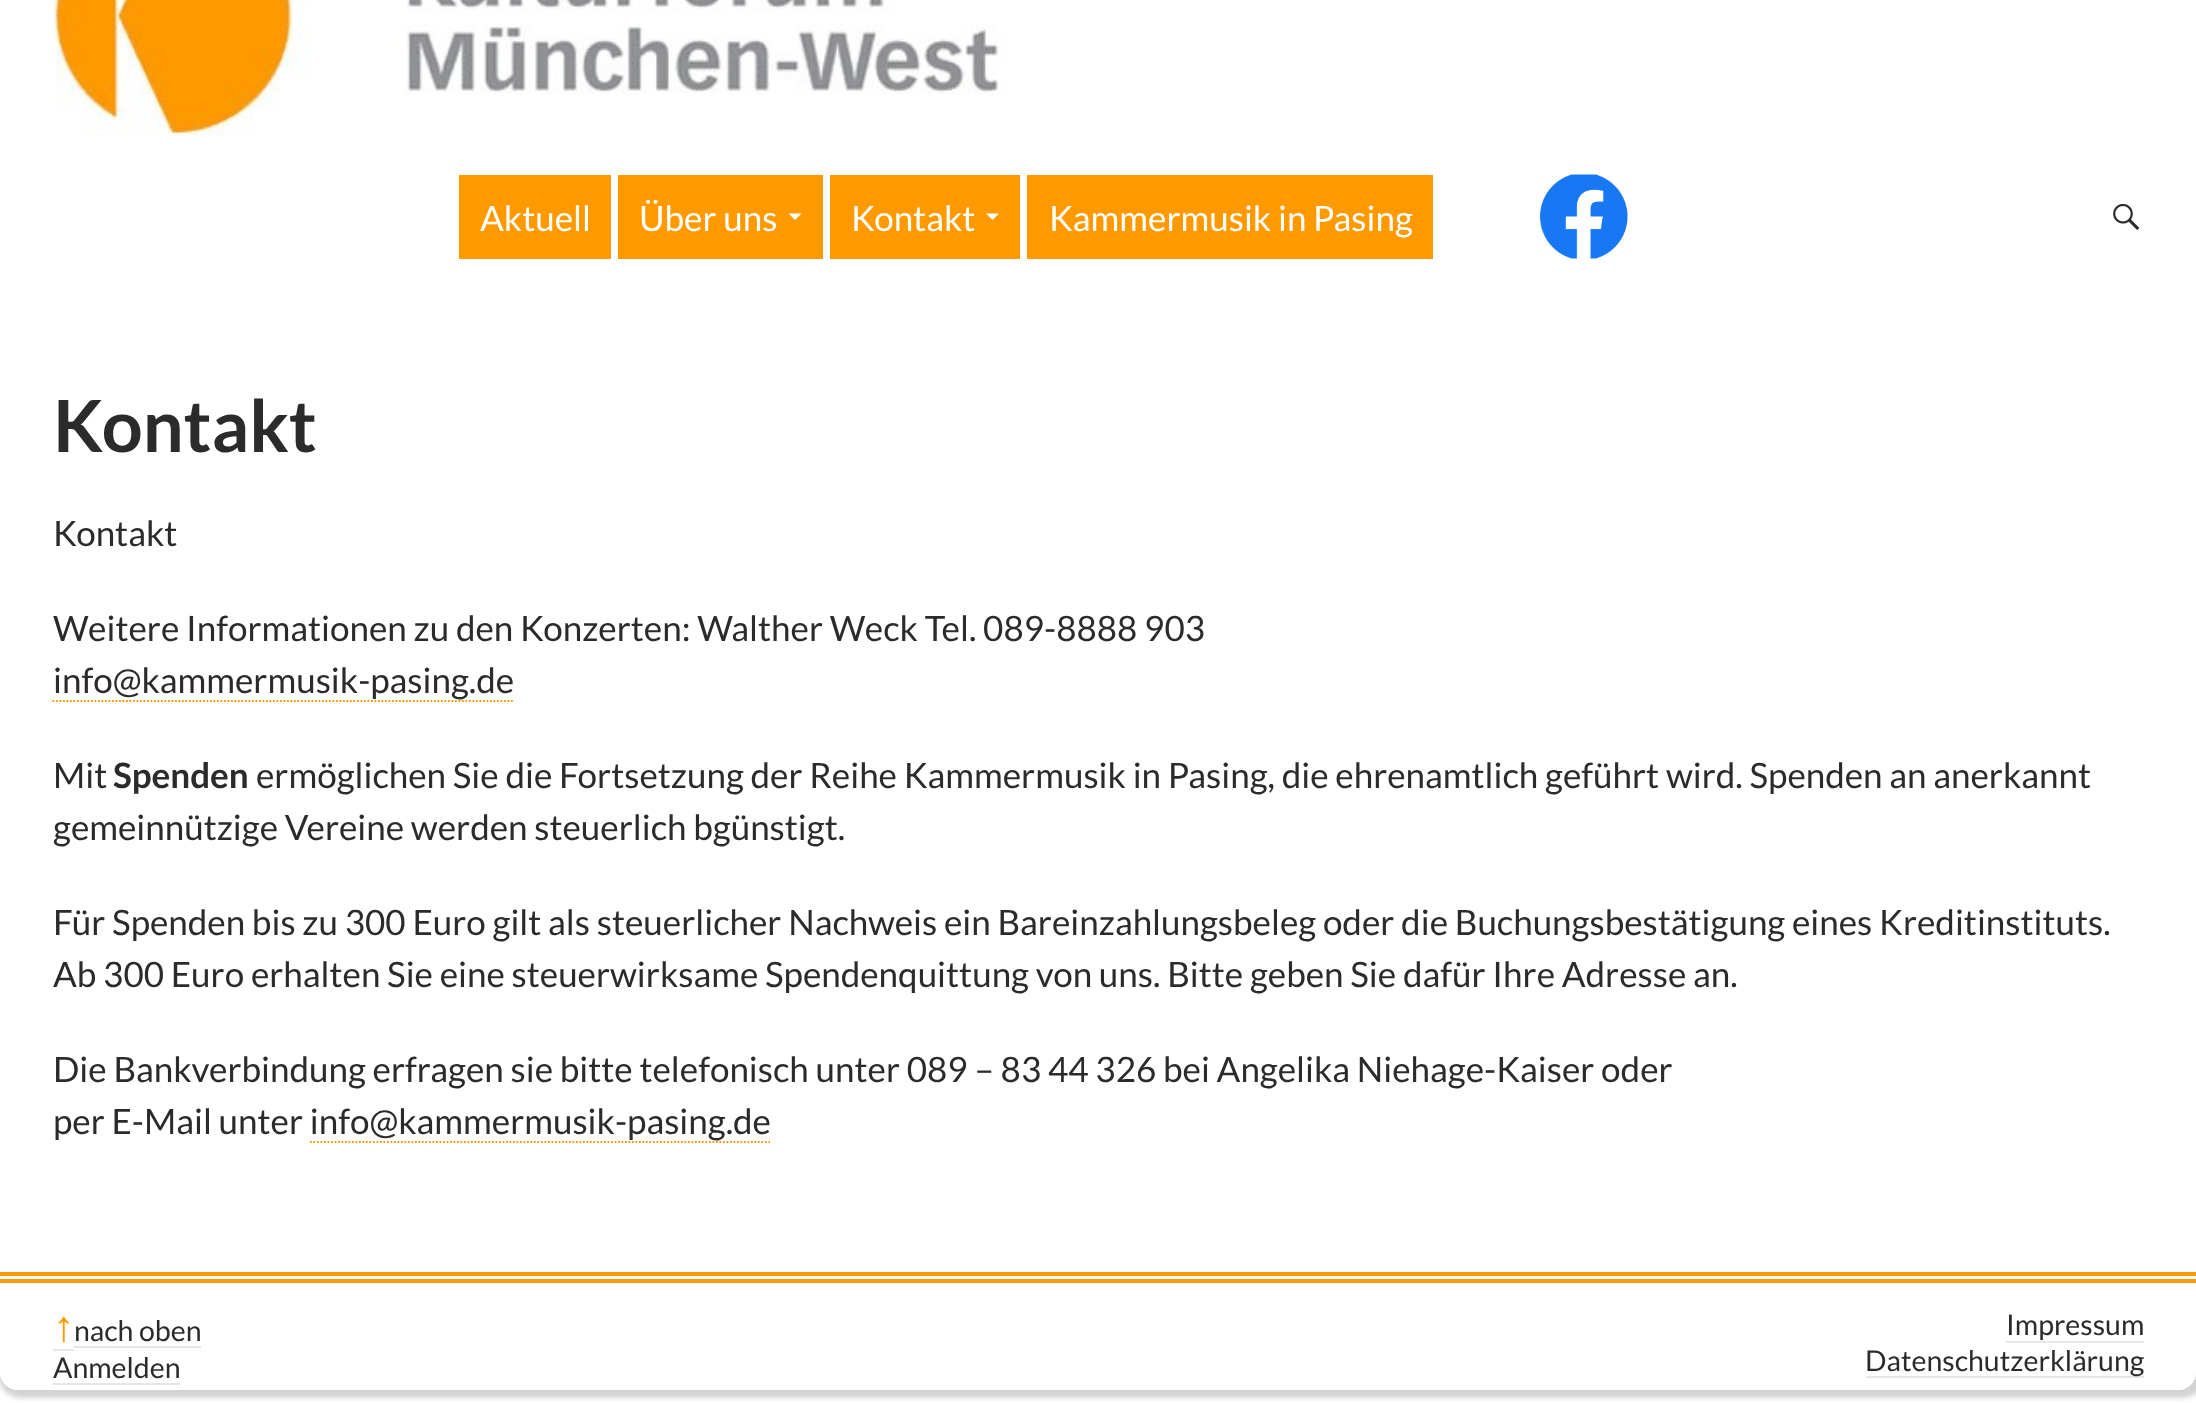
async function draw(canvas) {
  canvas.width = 2196;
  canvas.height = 1403;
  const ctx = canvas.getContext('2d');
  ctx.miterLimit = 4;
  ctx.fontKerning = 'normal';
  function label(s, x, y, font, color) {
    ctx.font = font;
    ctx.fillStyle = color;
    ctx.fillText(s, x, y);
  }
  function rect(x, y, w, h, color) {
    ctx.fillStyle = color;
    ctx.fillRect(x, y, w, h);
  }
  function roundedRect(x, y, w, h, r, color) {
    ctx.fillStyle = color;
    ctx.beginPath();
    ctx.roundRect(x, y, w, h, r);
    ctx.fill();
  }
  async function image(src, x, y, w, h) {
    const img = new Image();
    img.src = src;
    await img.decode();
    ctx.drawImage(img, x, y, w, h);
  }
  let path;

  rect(0, 0, 2196, 1403, '#fff');
  ctx.fillStyle = '#d3d3d3';
  ctx.filter = 'blur(2.5px)';
  ctx.beginPath();
  ctx.roundRect(-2, -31, 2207, 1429, 23);
  ctx.fill();
  ctx.filter = 'none';
  roundedRect(0, -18, 2196, 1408, 18, '#fff');
  await image('assets/img1.png', 53, 0, 955, 137);
  rect(459, 175, 152, 84, '#f90');
  label('Aktuell', 480, 231, '35px Lato', '#fff');
  rect(618, 175, 205, 84, '#f90');
  label('Über uns', 639, 231, '35px Lato', '#fff');
  path = new Path2D('M788.5 213.5L795 220L801.5 213.5Z');
  ctx.fill(path);
  rect(830, 175, 190, 84, '#f90');
  label('Kontakt', 851, 231, '35px Lato', '#fff');
  path = new Path2D('M986 213.5L992.5 220L999 213.5Z');
  ctx.fill(path);
  rect(1027, 175, 406, 84, '#f90');
  label('Kammermusik in Pasing', 1049, 231, '35px Lato', '#fff');
  await image('assets/img2.png', 1540, 174, 88, 85);
  await image('assets/img3.png', 2113, 203, 27, 27);
  label('Kontakt', 53, 452, 'bold 72px Lato', '#2b2b2b');
  label('Kontakt', 53, 546, '35px Lato', '#2b2b2b');
  label('Weitere Informationen zu den Konzerten: Walther Weck Tel. 089-8888 903', 53, 641, '35px Lato', '#2b2b2b');
  label('info@kammermusik-pasing.de', 53, 693, '35px Lato', '#2b2b2b');
  path = new Path2D('M52.5 701H514.5');
  ctx.strokeStyle = '#f90';
  ctx.lineWidth = 1.8;
  ctx.setLineDash([1.75, 1.75]);
  ctx.stroke(path);
  label('Mit', 53, 788, '35px Lato', '#2b2b2b');
  label('Spenden', 113, 788, 'bold 35px Lato', '#2b2b2b');
  label('ermöglichen Sie die Fortsetzung der Reihe Kammermusik in Pasing, die ehrenamtlich geführt wird. Spenden an anerkannt', 256, 788, '35px Lato', '#2b2b2b');
  label('gemeinnützige Vereine werden steuerlich bgünstigt.', 53, 840, '35px Lato', '#2b2b2b');
  label('Für Spenden bis zu 300 Euro gilt als steuerlicher Nachweis ein Bareinzahlungsbeleg oder die Buchungsbestätigung eines Kreditinstituts.', 53, 935, '35px Lato', '#2b2b2b');
  label('Ab 300 Euro erhalten Sie eine steuerwirksame Spendenquittung von uns. Bitte geben Sie dafür Ihre Adresse an.', 53, 987, '35px Lato', '#2b2b2b');
  label('Die Bankverbindung erfragen sie bitte telefonisch unter 089 – 83 44 326 bei Angelika Niehage-Kaiser oder', 53, 1082, '35px Lato', '#2b2b2b');
  label('per E-Mail unter info@kammermusik-pasing.de', 53, 1134, '35px Lato', '#2b2b2b');
  path = new Path2D('M310 1142H770');
  ctx.stroke(path);
  ctx.fillStyle = '#fff';
  ctx.beginPath();
  ctx.roundRect(0, 1272, 2196, 118, [0, 0, 18, 18]);
  ctx.fill();
  rect(0, 1272, 2196, 4, '#f90');
  rect(0, 1279, 2196, 4, '#f90');
  label('↑', 53, 1341, 'bold 43px Liberation Sans', '#f90');
  label('nach oben', 74, 1341, '28.5px Lato', '#2b2b2b');
  rect(53, 1349, 21, 2, '#e6e6e6');
  rect(74, 1346, 127, 2, '#e6e6e6');
  label('Anmelden', 53, 1378, '28.5px Lato', '#2b2b2b');
  rect(53, 1383, 127, 2, '#e6e6e6');
  label('Impressum', 2006, 1335, '28.5px Lato', '#2b2b2b');
  rect(2006, 1341, 138, 2, '#e6e6e6');
  rect(1866, 1376, 278, 2, '#e6e6e6');
  label('Datenschutzerklärung', 1865, 1371, '28.5px Lato', '#2b2b2b');
}

draw(document.querySelector('canvas'));
